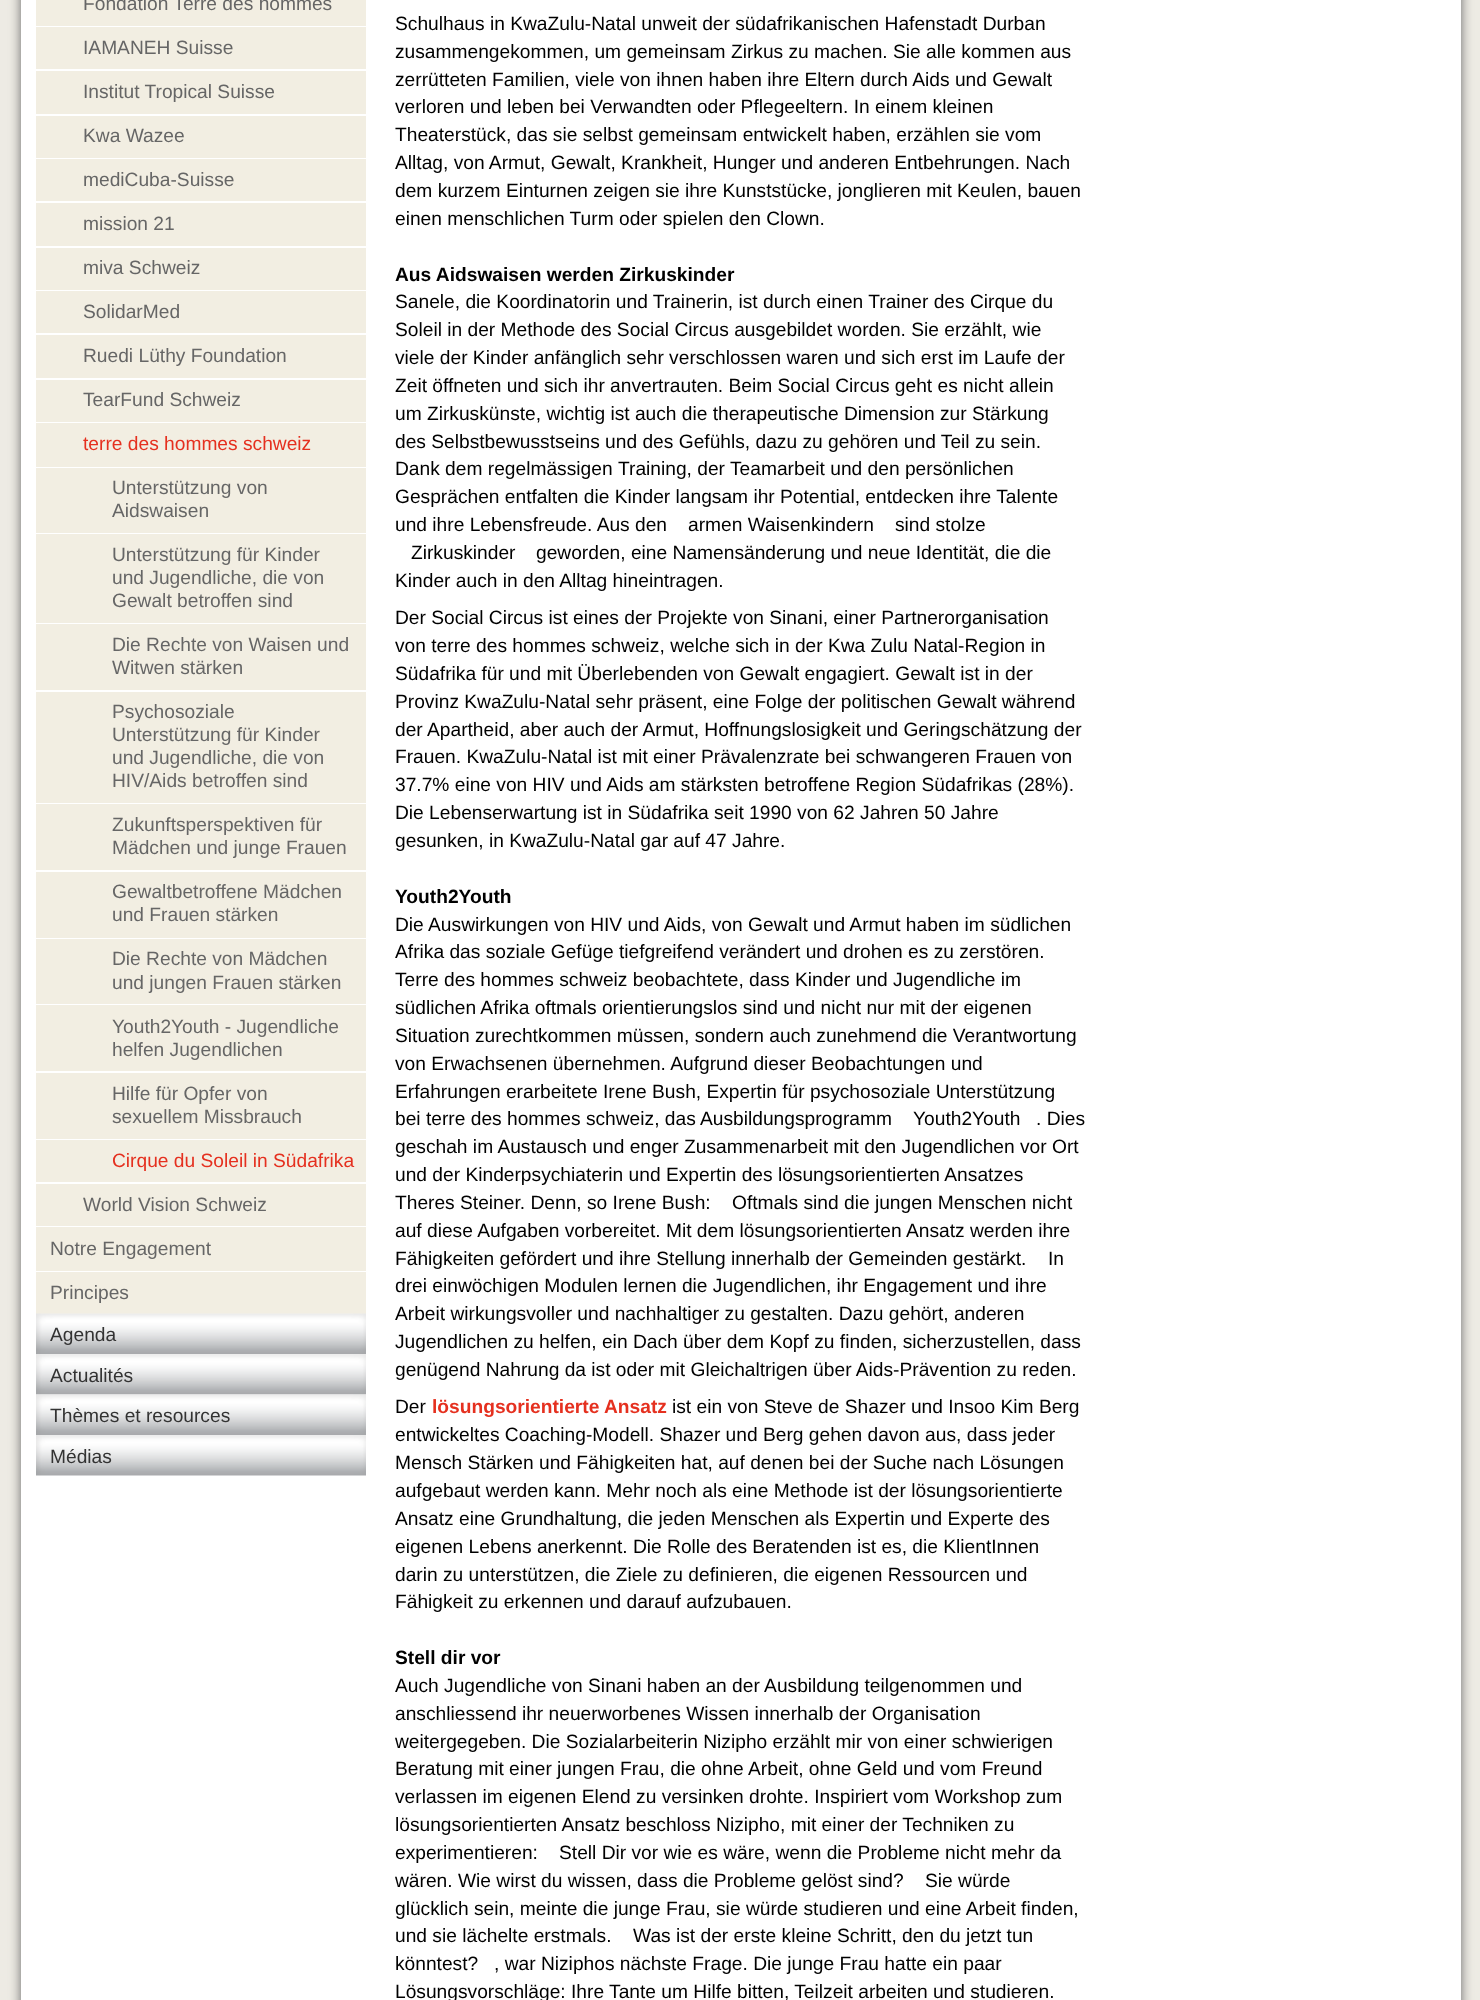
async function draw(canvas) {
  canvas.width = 1480;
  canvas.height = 2000;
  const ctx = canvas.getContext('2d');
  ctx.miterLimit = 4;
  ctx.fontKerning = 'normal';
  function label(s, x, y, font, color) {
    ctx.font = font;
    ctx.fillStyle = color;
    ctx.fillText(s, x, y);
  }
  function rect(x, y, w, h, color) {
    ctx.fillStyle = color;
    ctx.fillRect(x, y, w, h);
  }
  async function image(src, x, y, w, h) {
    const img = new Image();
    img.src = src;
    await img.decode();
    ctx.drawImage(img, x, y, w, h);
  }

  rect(0, 0, 1480, 2000, '#edebe4');
  ctx.fillStyle = '#666';
  ctx.filter = 'blur(6px)';
  ctx.beginPath();
  ctx.rect(21, -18, 1440, 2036);
  ctx.fill();
  ctx.filter = 'none';
  rect(21, 0, 1440, 2000, '#fff');
  rect(36, 0, 330, 26, '#f2eee2');
  label('Fondation Terre des hommes', 83, 10, '19.2px Liberation Sans', '#666');
  rect(36, 27, 330, 42, '#f2eee2');
  label('IAMANEH Suisse', 83, 54, '19.2px Liberation Sans', '#666');
  rect(36, 71, 330, 43, '#f2eee2');
  label('Institut Tropical Suisse', 83, 98, '19.2px Liberation Sans', '#666');
  rect(36, 116, 330, 42, '#f2eee2');
  label('Kwa Wazee', 83, 142, '19.2px Liberation Sans', '#666');
  rect(36, 159, 330, 42, '#f2eee2');
  label('mediCuba-Suisse', 83, 186, '19.2px Liberation Sans', '#666');
  rect(36, 203, 330, 43, '#f2eee2');
  label('mission 21', 83, 230, '19.2px Liberation Sans', '#666');
  rect(36, 248, 330, 42, '#f2eee2');
  label('miva Schweiz', 83, 274, '19.2px Liberation Sans', '#666');
  rect(36, 291, 330, 42, '#f2eee2');
  label('SolidarMed', 83, 318, '19.2px Liberation Sans', '#666');
  rect(36, 335, 330, 43, '#f2eee2');
  label('Ruedi Lüthy Foundation', 83, 362, '19.2px Liberation Sans', '#666');
  rect(36, 380, 330, 42, '#f2eee2');
  label('TearFund Schweiz', 83, 406, '19.2px Liberation Sans', '#666');
  rect(36, 423, 330, 44, '#f2eee2');
  label('terre des hommes schweiz', 83, 450, '19.2px Liberation Sans', '#e5301f');
  rect(36, 468, 330, 65, '#f2eee2');
  label('Unterstützung von', 112, 494, '19.2px Liberation Sans', '#666');
  label('Aidswaisen', 112, 517, '19.2px Liberation Sans', '#666');
  rect(36, 534, 330, 89, '#f2eee2');
  label('Unterstützung für Kinder', 112, 561, '19.2px Liberation Sans', '#666');
  label('und Jugendliche, die von', 112, 584, '19.2px Liberation Sans', '#666');
  label('Gewalt betroffen sind', 112, 607, '19.2px Liberation Sans', '#666');
  rect(36, 624, 330, 66, '#f2eee2');
  label('Die Rechte von Waisen und', 112, 651, '19.2px Liberation Sans', '#666');
  label('Witwen stärken', 112, 674, '19.2px Liberation Sans', '#666');
  rect(36, 692, 330, 111, '#f2eee2');
  label('Psychosoziale', 112, 718, '19.2px Liberation Sans', '#666');
  label('Unterstützung für Kinder', 112, 741, '19.2px Liberation Sans', '#666');
  label('und Jugendliche, die von', 112, 764, '19.2px Liberation Sans', '#666');
  label('HIV/Aids betroffen sind', 112, 787, '19.2px Liberation Sans', '#666');
  rect(36, 804, 330, 66, '#f2eee2');
  label('Zukunftsperspektiven für', 112, 831, '19.2px Liberation Sans', '#666');
  label('Mädchen und junge Frauen', 112, 854, '19.2px Liberation Sans', '#666');
  rect(36, 872, 330, 66, '#f2eee2');
  label('Gewaltbetroffene Mädchen', 112, 898, '19.2px Liberation Sans', '#666');
  label('und Frauen stärken', 112, 921, '19.2px Liberation Sans', '#666');
  rect(36, 939, 330, 65, '#f2eee2');
  label('Die Rechte von Mädchen', 112, 965, '19.2px Liberation Sans', '#666');
  label('und jungen Frauen stärken', 112, 989, '19.2px Liberation Sans', '#666');
  rect(36, 1005, 330, 66, '#f2eee2');
  label('Youth2Youth - Jugendliche', 112, 1033, '19.2px Liberation Sans', '#666');
  label('helfen Jugendlichen', 112, 1056, '19.2px Liberation Sans', '#666');
  rect(36, 1073, 330, 66, '#f2eee2');
  label('Hilfe für Opfer von', 112, 1100, '19.2px Liberation Sans', '#666');
  label('sexuellem Missbrauch', 112, 1123, '19.2px Liberation Sans', '#666');
  rect(36, 1140, 330, 42, '#f2eee2');
  label('Cirque du Soleil in Südafrika', 112, 1167, '19.2px Liberation Sans', '#e5301f');
  rect(36, 1184, 330, 42, '#f2eee2');
  label('World Vision Schweiz', 83, 1211, '19.2px Liberation Sans', '#666');
  rect(36, 1227, 330, 44, '#f2eee2');
  label('Notre Engagement', 50, 1255, '19.2px Liberation Sans', '#666');
  rect(36, 1272, 330, 42, '#f2eee2');
  label('Principes', 50, 1299, '19.2px Liberation Sans', '#666');
  await image('assets/img1.png', 36, 1313, 330, 41);
  label('Agenda', 50, 1341, '19.2px Liberation Sans', '#333');
  await image('assets/img2.png', 36, 1354, 330, 41);
  label('Actualités', 50, 1382, '19.2px Liberation Sans', '#333');
  await image('assets/img3.png', 36, 1394, 330, 41);
  label('Thèmes et resources', 50, 1422, '19.2px Liberation Sans', '#333');
  await image('assets/img2.png', 36, 1435, 330, 41);
  label('Médias', 50, 1463, '19.2px Liberation Sans', '#333');
  label('Schulhaus in KwaZulu-Natal unweit der südafrikanischen Hafenstadt Durban', 395, 30, '19.2px Liberation Sans', '#000');
  label('zusammengekommen, um gemeinsam Zirkus zu machen. Sie alle kommen aus', 395, 58, '19.2px Liberation Sans', '#000');
  label('zerrütteten Familien, viele von ihnen haben ihre Eltern durch Aids und Gewalt', 395, 86, '19.2px Liberation Sans', '#000');
  label('verloren und leben bei Verwandten oder Pflegeeltern. In einem kleinen', 395, 113, '19.2px Liberation Sans', '#000');
  label('Theaterstück, das sie selbst gemeinsam entwickelt haben, erzählen sie vom', 395, 141, '19.2px Liberation Sans', '#000');
  label('Alltag, von Armut, Gewalt, Krankheit, Hunger und anderen Entbehrungen. Nach', 395, 169, '19.2px Liberation Sans', '#000');
  label('dem kurzem Einturnen zeigen sie ihre Kunststücke, jonglieren mit Keulen, bauen', 395, 197, '19.2px Liberation Sans', '#000');
  label('einen menschlichen Turm oder spielen den Clown.', 395, 225, '19.2px Liberation Sans', '#000');
  label('Aus Aidswaisen werden Zirkuskinder', 395, 281, 'bold 19.2px Liberation Sans', '#000');
  label('Sanele, die Koordinatorin und Trainerin, ist durch einen Trainer des Cirque du', 395, 308, '19.2px Liberation Sans', '#000');
  label('Soleil in der Methode des Social Circus ausgebildet worden. Sie erzählt, wie', 395, 336, '19.2px Liberation Sans', '#000');
  label('viele der Kinder anfänglich sehr verschlossen waren und sich erst im Laufe der', 395, 364, '19.2px Liberation Sans', '#000');
  label('Zeit öffneten und sich ihr anvertrauten. Beim Social Circus geht es nicht allein', 395, 392, '19.2px Liberation Sans', '#000');
  label('um Zirkuskünste, wichtig ist auch die therapeutische Dimension zur Stärkung', 395, 420, '19.2px Liberation Sans', '#000');
  label('des Selbstbewusstseins und des Gefühls, dazu zu gehören und Teil zu sein.', 395, 448, '19.2px Liberation Sans', '#000');
  label('Dank dem regelmässigen', 395, 475, '19.2px Liberation Sans', '#000');
  label('Training, der Teamarbeit und den persönlichen', 618, 475, '19.2px Liberation Sans', '#000');
  label('Gesprächen entfalten die Kinder langsam ihr Potential, entdecken ihre Talente', 395, 503, '19.2px Liberation Sans', '#000');
  label('und ihre Lebensfreude. Aus den', 395, 531, '19.2px Liberation Sans', '#000');
  label('armen Waisenkindern', 688, 531, '19.2px Liberation Sans', '#000');
  label('sind stolze', 895, 531, '19.2px Liberation Sans', '#000');
  label('Zirkuskinder', 411, 559, '19.2px Liberation Sans', '#000');
  label('geworden, eine Namensänderung und neue Identität, die die', 536, 559, '19.2px Liberation Sans', '#000');
  label('Kinder auch in den Alltag hineintragen.', 395, 587, '19.2px Liberation Sans', '#000');
  label('Der Social Circus ist eines der Projekte von Sinani, einer Partnerorganisation', 395, 624, '19.2px Liberation Sans', '#000');
  label('von terre des hommes schweiz, welche sich in der Kwa Zulu Natal-Region in', 395, 652, '19.2px Liberation Sans', '#000');
  label('Südafrika für und mit Überlebenden von Gewalt engagiert. Gewalt ist in der', 395, 680, '19.2px Liberation Sans', '#000');
  label('Provinz KwaZulu-Natal sehr präsent, eine Folge der politischen Gewalt während', 395, 708, '19.2px Liberation Sans', '#000');
  label('der Apartheid, aber auch der Armut, Hoffnungslosigkeit und Geringschätzung der', 395, 736, '19.2px Liberation Sans', '#000');
  label('Frauen. KwaZulu-Natal ist mit einer Prävalenzrate bei schwangeren Frauen von', 395, 763, '19.2px Liberation Sans', '#000');
  label('37.7% eine von HIV und Aids am stärksten betroffene Region Südafrikas (28%).', 395, 791, '19.2px Liberation Sans', '#000');
  label('Die Lebenserwartung ist in Südafrika seit 1990 von 62 Jahren 50 Jahre', 395, 819, '19.2px Liberation Sans', '#000');
  label('gesunken, in KwaZulu-Natal gar auf 47 Jahre.', 395, 847, '19.2px Liberation Sans', '#000');
  label('Youth2Youth', 395, 903, 'bold 19.2px Liberation Sans', '#000');
  label('Die Auswirkungen von HIV und Aids, von Gewalt und Armut haben im südlichen', 395, 931, '19.2px Liberation Sans', '#000');
  label('Afrika das soziale Gefüge tiefgreifend verändert und drohen es zu zerstören.', 395, 958, '19.2px Liberation Sans', '#000');
  label('Terre des hommes schweiz beobachtete, dass Kinder und Jugendliche im', 395, 986, '19.2px Liberation Sans', '#000');
  label('südlichen Afrika oftmals orientierungslos sind und nicht nur mit der eigenen', 395, 1014, '19.2px Liberation Sans', '#000');
  label('Situation zurechtkommen müssen, sondern auch zunehmend die Verantwortung', 395, 1042, '19.2px Liberation Sans', '#000');
  label('von Erwachsenen übernehmen. Aufgrund dieser Beobachtungen und', 395, 1070, '19.2px Liberation Sans', '#000');
  label('Erfahrungen erarbeitete Irene Bush, Expertin für psychosoziale Unterstützung', 395, 1098, '19.2px Liberation Sans', '#000');
  label('bei terre des hommes schweiz, das', 395, 1125, '19.2px Liberation Sans', '#000');
  label('Ausbildungsprogramm', 700, 1125, '19.2px Liberation Sans', '#000');
  label('Youth2Youth', 913, 1125, '19.2px Liberation Sans', '#000');
  label('. Dies', 1036, 1125, '19.2px Liberation Sans', '#000');
  label('geschah im Austausch und enger Zusammenarbeit mit den Jugendlichen vor Ort', 395, 1153, '19.2px Liberation Sans', '#000');
  label('und der Kinderpsychiaterin und Expertin des lösungsorientierten Ansatzes', 395, 1181, '19.2px Liberation Sans', '#000');
  label('Theres Steiner. Denn, so Irene Bush:', 395, 1209, '19.2px Liberation Sans', '#000');
  label('Oftmals sind die jungen Menschen nicht', 732, 1209, '19.2px Liberation Sans', '#000');
  label('auf diese Aufgaben vorbereitet. Mit dem lösungsorientierten Ansatz werden ihre', 395, 1237, '19.2px Liberation Sans', '#000');
  label('Fähigkeiten gefördert und ihre Stellung innerhalb der Gemeinden gestärkt.', 395, 1265, '19.2px Liberation Sans', '#000');
  label('In', 1048, 1265, '19.2px Liberation Sans', '#000');
  label('drei einwöchigen Modulen lernen die Jugendlichen, ihr Engagement und ihre', 395, 1292, '19.2px Liberation Sans', '#000');
  label('Arbeit wirkungsvoller und nachhaltiger zu gestalten. Dazu gehört, anderen', 395, 1320, '19.2px Liberation Sans', '#000');
  label('Jugendlichen zu helfen, ein Dach über dem Kopf zu finden, sicherzustellen, dass', 395, 1348, '19.2px Liberation Sans', '#000');
  label('genügend Nahrung da ist oder mit Gleichaltrigen über Aids-Prävention zu reden.', 395, 1376, '19.2px Liberation Sans', '#000');
  label('Der', 395, 1413, '19.2px Liberation Sans', '#000');
  label('lösungsorientierte Ansatz', 432, 1413, 'bold 19.2px Liberation Sans', '#e5301f');
  label('ist ein von Steve de Shazer und Insoo Kim Berg', 672, 1413, '19.2px Liberation Sans', '#000');
  label('entwickeltes Coaching-Modell. Shazer und Berg gehen davon aus, dass jeder', 395, 1441, '19.2px Liberation Sans', '#000');
  label('Mensch Stärken und Fähigkeiten hat, auf denen bei der Suche nach Lösungen', 395, 1469, '19.2px Liberation Sans', '#000');
  label('aufgebaut werden kann. Mehr noch als eine Methode ist der lösungsorientierte', 395, 1497, '19.2px Liberation Sans', '#000');
  label('Ansatz eine Grundhaltung, die jeden Menschen als Expertin und Experte des', 395, 1525, '19.2px Liberation Sans', '#000');
  label('eigenen Lebens anerkennt. Die Rolle des Beratenden ist es, die KlientInnen', 395, 1553, '19.2px Liberation Sans', '#000');
  label('darin zu unterstützen, die Ziele zu definieren, die eigenen Ressourcen und', 395, 1581, '19.2px Liberation Sans', '#000');
  label('Fähigkeit zu erkennen und darauf aufzubauen.', 395, 1608, '19.2px Liberation Sans', '#000');
  label('Stell dir vor', 395, 1664, 'bold 19.2px Liberation Sans', '#000');
  label('Auch Jugendliche von Sinani haben an der Ausbildung teilgenommen und', 395, 1692, '19.2px Liberation Sans', '#000');
  label('anschliessend ihr neuerworbenes Wissen innerhalb der Organisation', 395, 1720, '19.2px Liberation Sans', '#000');
  label('weitergegeben. Die Sozialarbeiterin Nizipho erzählt mir von einer schwierigen', 395, 1748, '19.2px Liberation Sans', '#000');
  label('Beratung mit einer jungen Frau, die ohne Arbeit, ohne Geld und vom Freund', 395, 1775, '19.2px Liberation Sans', '#000');
  label('verlassen im eigenen Elend zu versinken drohte. Inspiriert vom Workshop zum', 395, 1803, '19.2px Liberation Sans', '#000');
  label('lösungsorientierten Ansatz beschloss Nizipho, mit einer der Techniken zu', 395, 1831, '19.2px Liberation Sans', '#000');
  label('experimentieren:', 395, 1859, '19.2px Liberation Sans', '#000');
  label('Stell Dir vor wie es wäre, wenn die Probleme nicht mehr da', 559, 1859, '19.2px Liberation Sans', '#000');
  label('wären. Wie wirst du wissen, dass die Probleme gelöst sind?', 395, 1887, '19.2px Liberation Sans', '#000');
  label('Sie würde', 925, 1887, '19.2px Liberation Sans', '#000');
  label('glücklich sein, meinte die junge Frau, sie würde studieren und eine Arbeit finden,', 395, 1915, '19.2px Liberation Sans', '#000');
  label('und sie lächelte erstmals.', 395, 1942, '19.2px Liberation Sans', '#000');
  label('Was ist der erste kleine Schritt, den du jetzt tun', 633, 1942, '19.2px Liberation Sans', '#000');
  label('könntest?', 395, 1970, '19.2px Liberation Sans', '#000');
  label(', war Niziphos nächste Frage. Die junge Frau hatte ein paar', 494, 1970, '19.2px Liberation Sans', '#000');
  label('Lösungsvorschläge: Ihre Tante um Hilfe bitten, Teilzeit arbeiten und studieren.', 395, 1998, '19.2px Liberation Sans', '#000');
}

draw(document.querySelector('canvas'));
